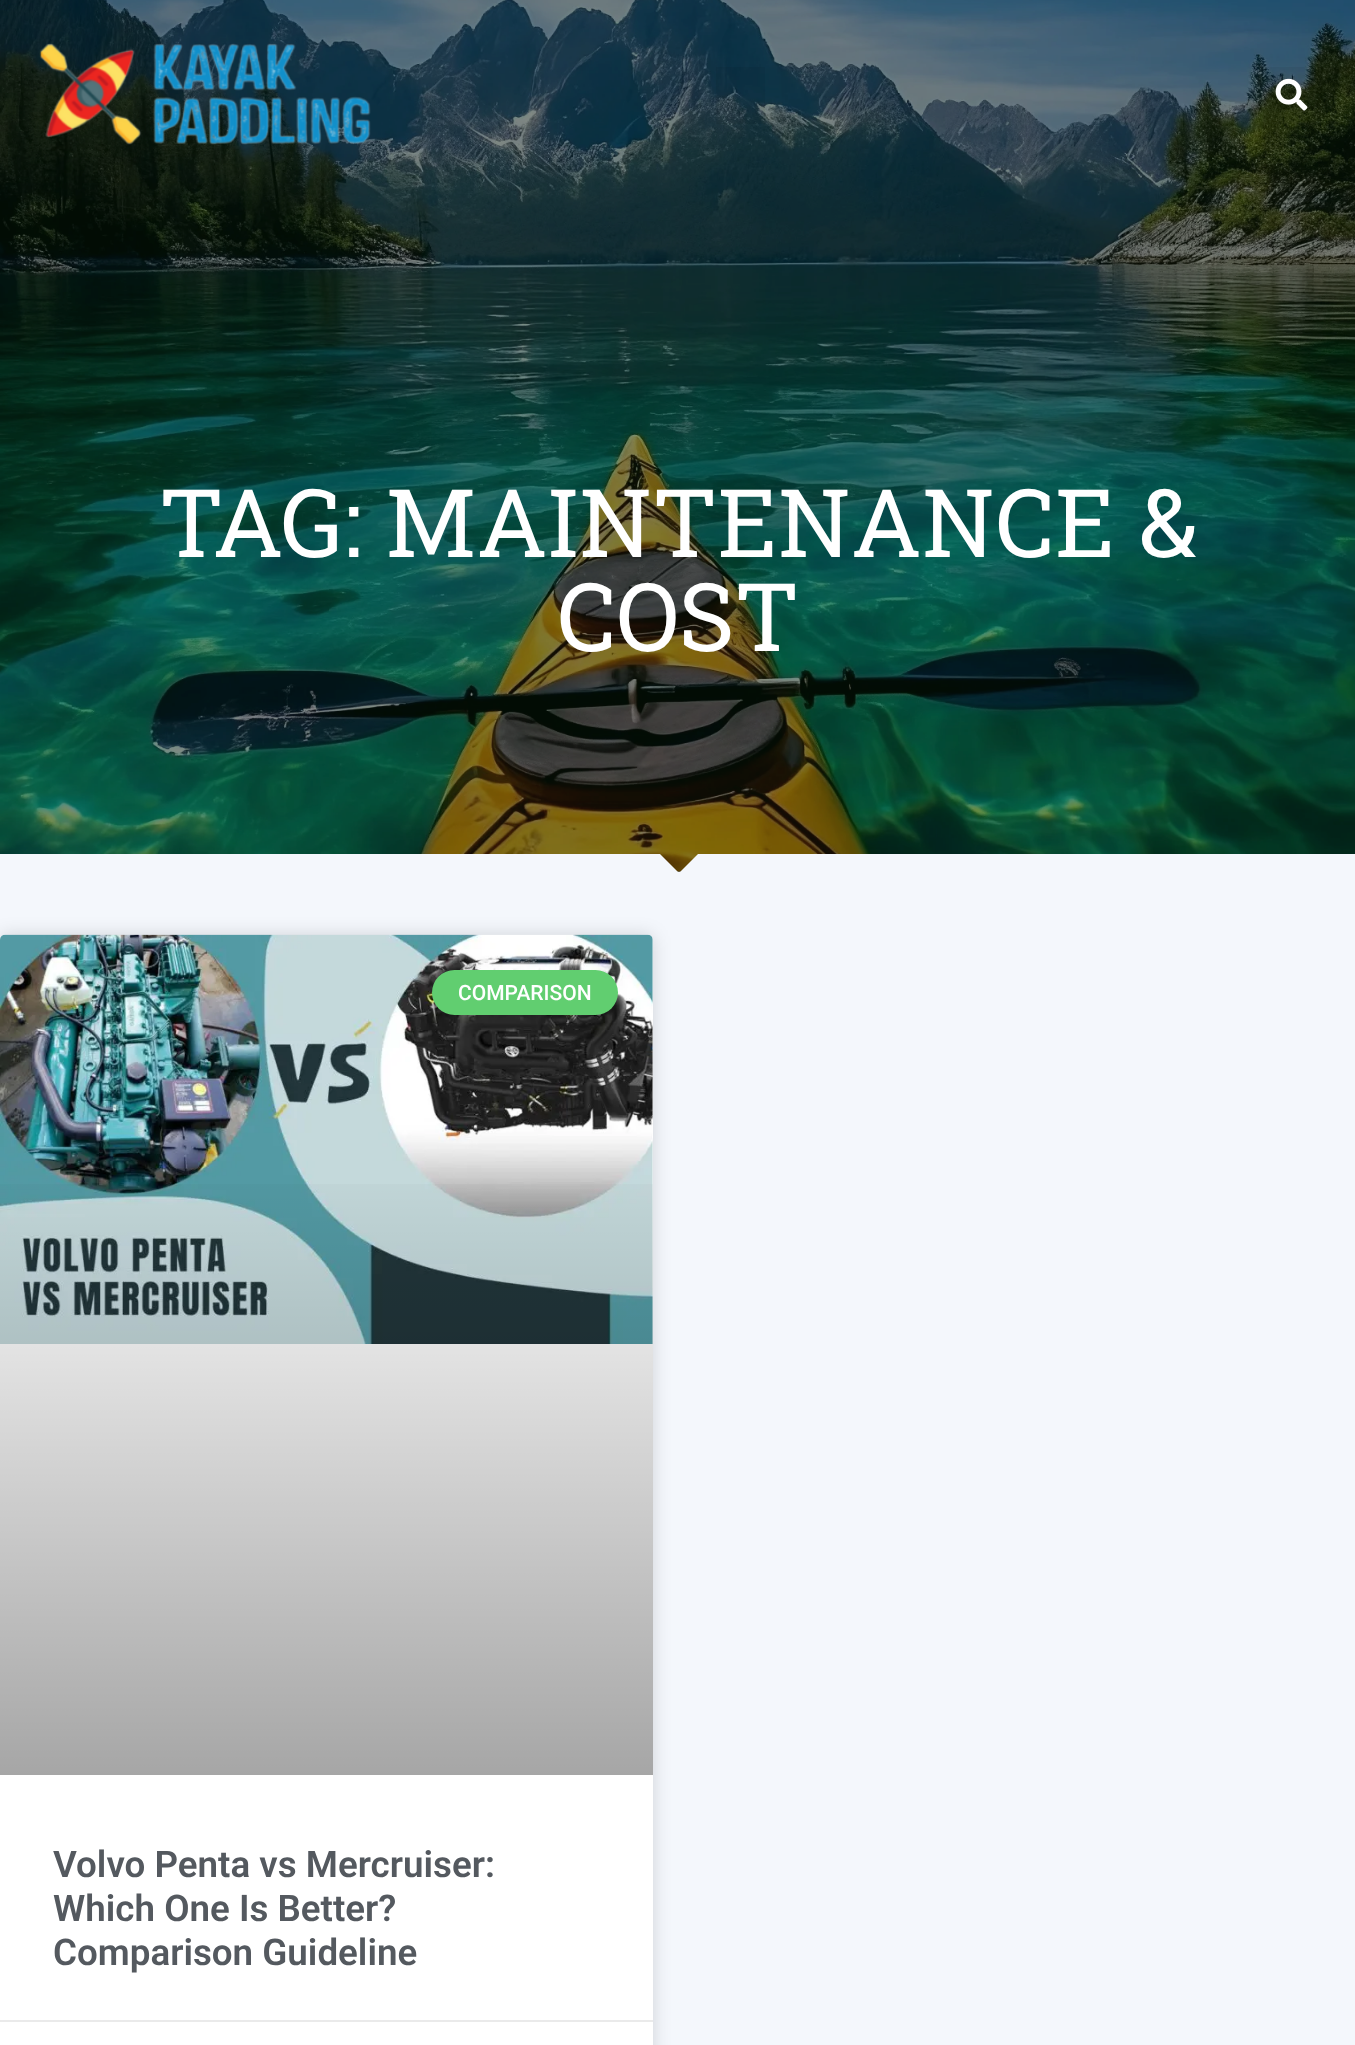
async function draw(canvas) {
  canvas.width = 1355;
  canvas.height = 2045;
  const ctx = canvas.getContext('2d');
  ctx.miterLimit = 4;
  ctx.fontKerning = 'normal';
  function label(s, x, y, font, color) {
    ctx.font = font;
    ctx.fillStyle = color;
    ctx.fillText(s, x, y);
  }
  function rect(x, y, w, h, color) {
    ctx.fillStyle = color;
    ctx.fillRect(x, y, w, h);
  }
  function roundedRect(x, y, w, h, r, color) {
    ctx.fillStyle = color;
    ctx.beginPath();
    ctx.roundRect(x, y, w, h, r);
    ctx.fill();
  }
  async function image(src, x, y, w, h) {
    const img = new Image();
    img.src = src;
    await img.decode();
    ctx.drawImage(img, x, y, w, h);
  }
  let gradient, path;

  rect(0, 0, 1355, 2045, '#f4f7fc');
  rect(677, 871, 4, 1, '#7c8882');
  await image('assets/img3.png', 0, 0, 1355, 872);
  await image('assets/img1.png', 39, 43, 332, 102);
  rect(716, 67, 49, 57, '#0000000d');
  rect(1264, 67, 57, 57, '#0000000d');
  await image('assets/img2.png', 1275, 78, 33, 33);
  label('TAG: MAINTENANCE &', 159, 557, '94.5px Roboto Slab', '#fff');
  label('COST', 557, 651, '94.5px Roboto Slab', '#fff');
  ctx.fillStyle = '#f4f7fc';
  path = new Path2D('M698 854L679 873L660 854H0V873H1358V854');
  ctx.fill(path);
  ctx.fillStyle = '#00000026';
  ctx.filter = 'blur(9px)';
  ctx.beginPath();
  ctx.roundRect(0, 935, 653, 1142, 5);
  ctx.fill();
  ctx.filter = 'none';
  roundedRect(0, 935, 653, 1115, 5, '#fff');
  await image('assets/img4.png', 0, 934, 653, 410);
  gradient = ctx.createLinearGradient(326, 1775, 326, 935);
  gradient.addColorStop(0, '#00000059');
  gradient.addColorStop(0.75, '#00000000');
  ctx.fillStyle = gradient;
  ctx.fillRect(0, 1184, 653, 591);
  roundedRect(432, 970, 186, 45, 22.5, '#61ce70');
  label('COMPARISON', 458, 1000, '500 21px Roboto', '#fff');
  label('Volvo Penta vs Mercruiser:', 53, 1877, '600 36.75px Roboto', '#54595f');
  label('Which One Is Better?', 53, 1921, '600 36.75px Roboto', '#54595f');
  label('Comparison Guideline', 53, 1965, '600 36.75px Roboto', '#54595f');
  rect(0, 2020, 653, 2, '#eaeaea');
}

draw(document.querySelector('canvas'));
